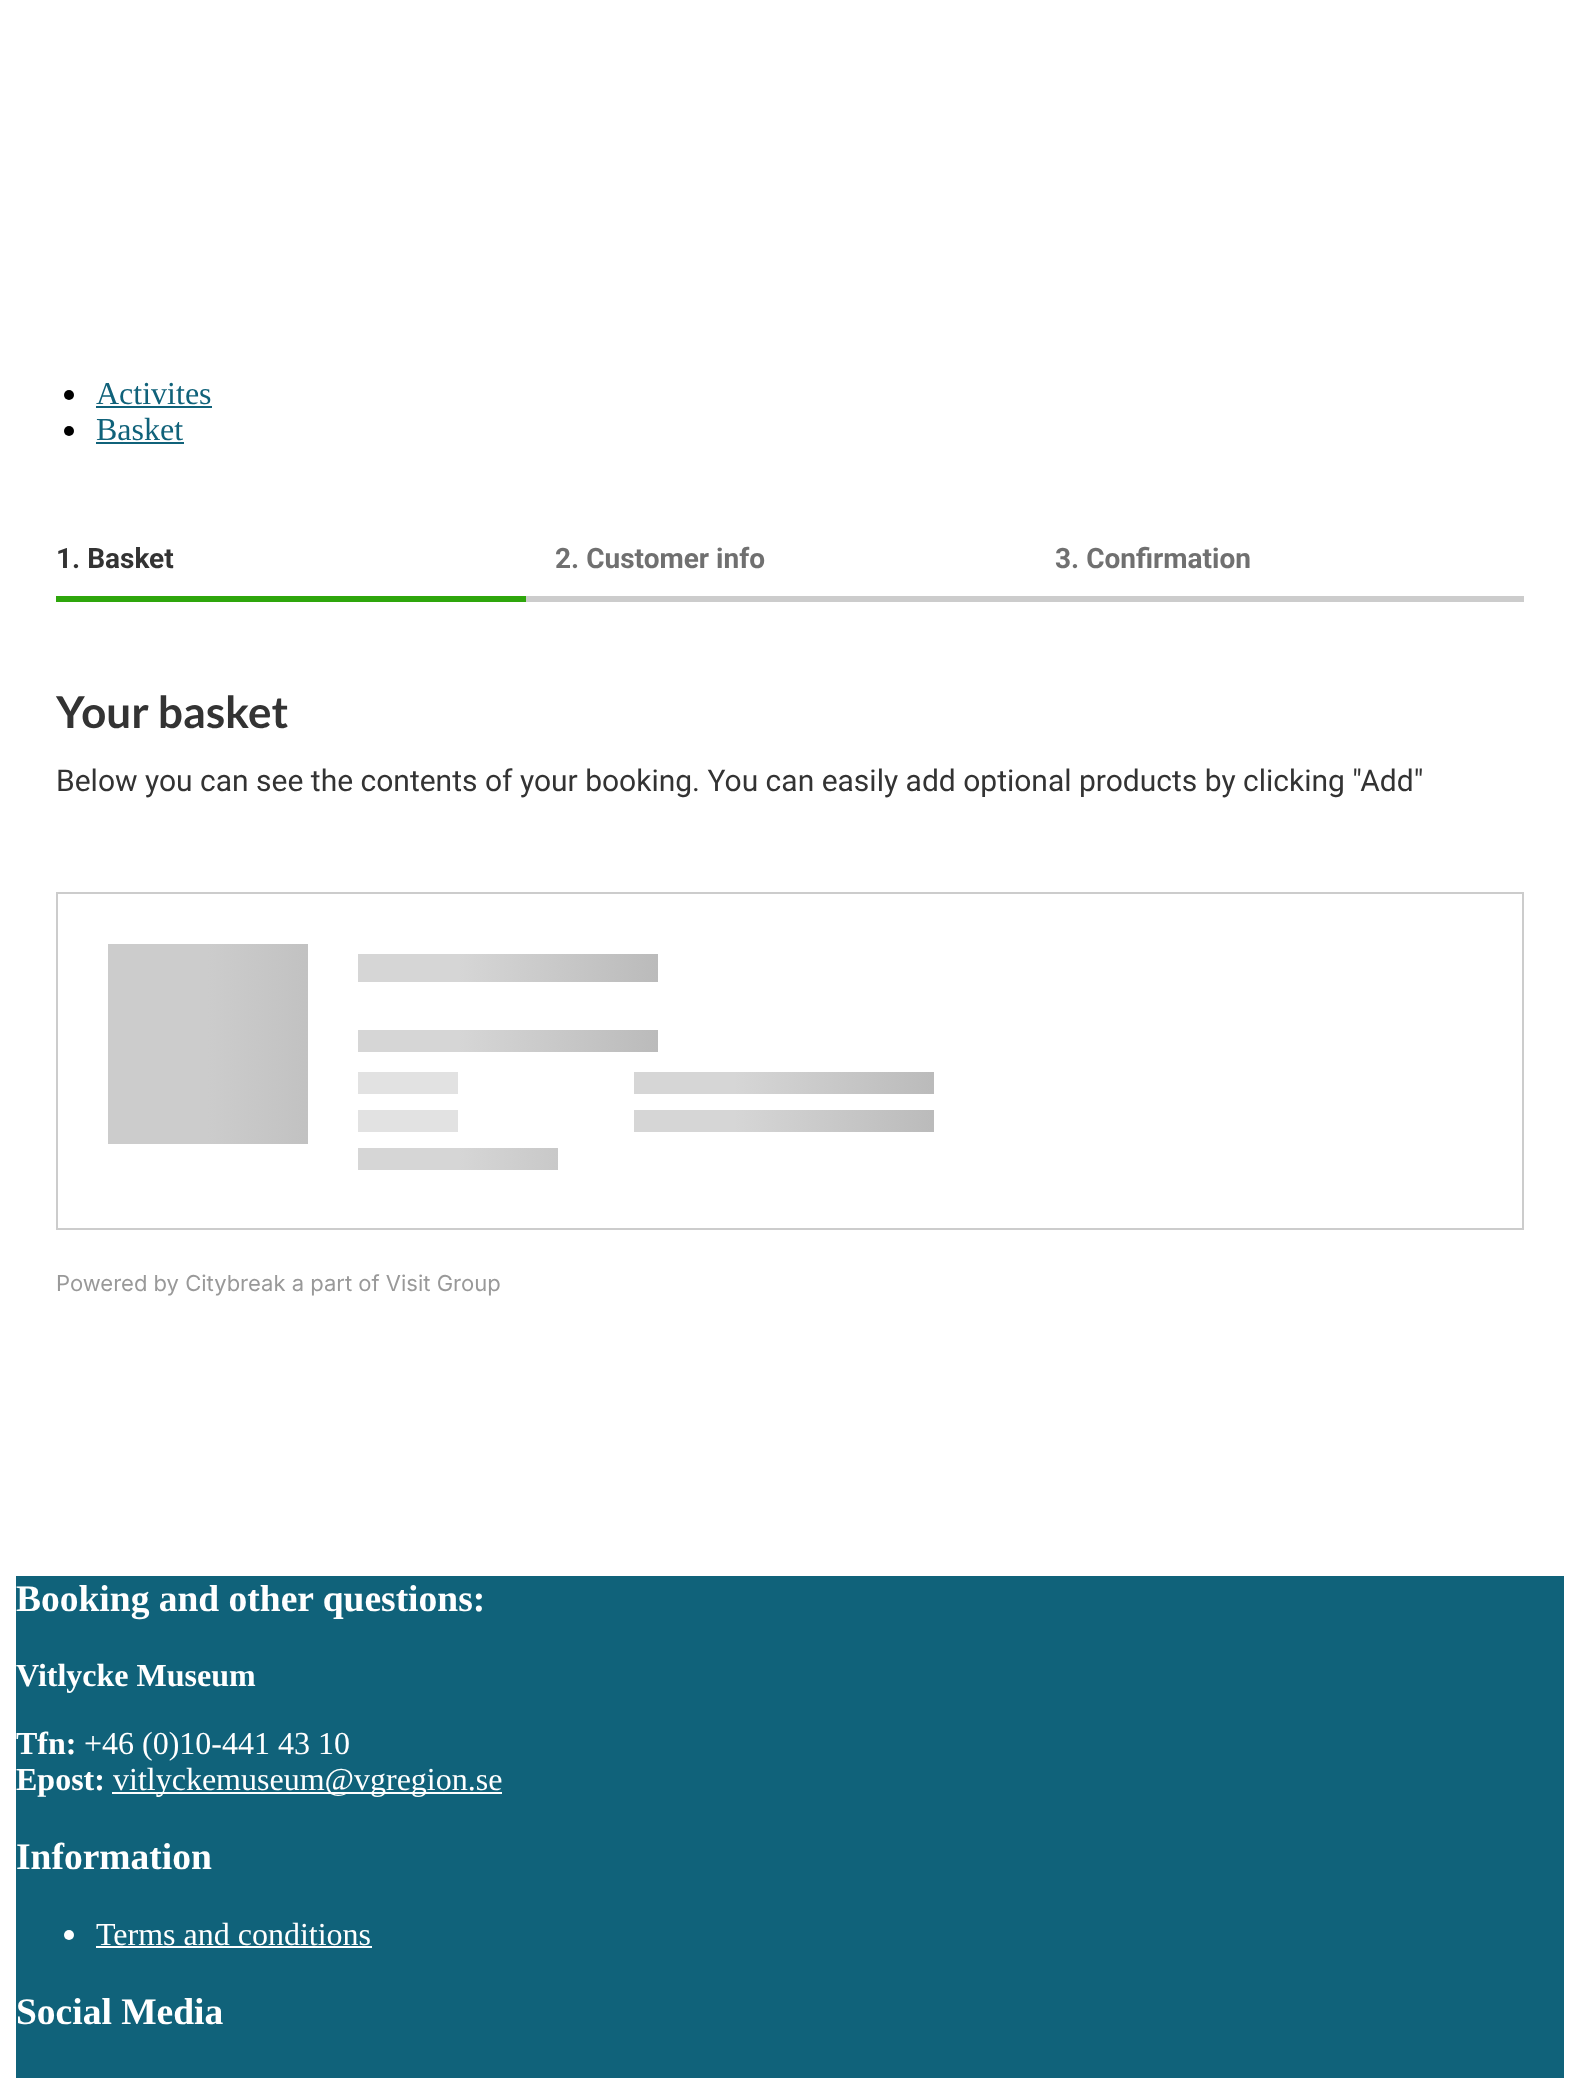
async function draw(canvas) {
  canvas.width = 1579;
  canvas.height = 2078;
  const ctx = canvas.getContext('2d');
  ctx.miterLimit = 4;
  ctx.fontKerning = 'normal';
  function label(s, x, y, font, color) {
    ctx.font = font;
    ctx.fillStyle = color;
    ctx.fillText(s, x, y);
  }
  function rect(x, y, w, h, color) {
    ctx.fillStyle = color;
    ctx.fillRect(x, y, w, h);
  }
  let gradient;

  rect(0, 0, 1579, 2078, '#fff');
  ctx.fillStyle = '#000';
  ctx.beginPath();
  ctx.arc(69, 395, 5, 0, 2 * Math.PI);
  ctx.fill();
  label('Activites', 96, 404, '32px Liberation Serif', '#10627a');
  rect(96, 406, 116, 2, '#10627a');
  ctx.fillStyle = '#000';
  ctx.beginPath();
  ctx.arc(69, 431, 5, 0, 2 * Math.PI);
  ctx.fill();
  label('Basket', 96, 440, '32px Liberation Serif', '#10627a');
  rect(96, 442, 88, 2, '#10627a');
  label('1. Basket', 56, 568, 'bold 28px Roboto', '#333');
  rect(56, 596, 470, 6, '#2ea60c');
  label('2. Customer info', 555, 568, 'bold 28px Roboto', '#707070');
  label('3. Confirmation', 1055, 568, 'bold 28px Roboto', '#707070');
  rect(526, 596, 998, 6, '#ccc');
  label('Your basket', 56, 728, 'bold 44px Lato', '#333');
  label('Below you can see the contents of your booking. You can easily add optional products by clicking "Add"', 56, 791, '30px Roboto', '#333');
  ctx.strokeStyle = '#ccc';
  ctx.lineWidth = 2;
  ctx.strokeRect(57, 893, 1466, 336);
  gradient = ctx.createLinearGradient(108, 1044, 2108, 1044);
  gradient.addColorStop(0.05, '#ccc');
  gradient.addColorStop(0.2, '#adadad');
  gradient.addColorStop(0.3, '#adadad');
  gradient.addColorStop(0.32, '#ccc');
  ctx.fillStyle = gradient;
  ctx.fillRect(108, 944, 200, 200);
  gradient = ctx.createLinearGradient(358, 1054, 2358, 1054);
  gradient.addColorStop(0.05, '#d6d6d6');
  gradient.addColorStop(0.2, '#adadad');
  gradient.addColorStop(0.3, '#adadad');
  gradient.addColorStop(0.32, '#d6d6d6');
  ctx.fillStyle = gradient;
  ctx.fillRect(358, 954, 300, 28);
  gradient = ctx.createLinearGradient(358, 1130, 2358, 1130);
  gradient.addColorStop(0.05, '#d6d6d6');
  gradient.addColorStop(0.2, '#adadad');
  gradient.addColorStop(0.3, '#adadad');
  gradient.addColorStop(0.32, '#d6d6d6');
  ctx.fillStyle = gradient;
  ctx.fillRect(358, 1030, 300, 22);
  rect(358, 1072, 100, 22, '#e2e2e2');
  gradient = ctx.createLinearGradient(634, 1172, 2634, 1172);
  gradient.addColorStop(0.05, '#d6d6d6');
  gradient.addColorStop(0.2, '#adadad');
  gradient.addColorStop(0.3, '#adadad');
  gradient.addColorStop(0.32, '#d6d6d6');
  ctx.fillStyle = gradient;
  ctx.fillRect(634, 1072, 300, 22);
  rect(358, 1110, 100, 22, '#e2e2e2');
  gradient = ctx.createLinearGradient(634, 1210, 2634, 1210);
  gradient.addColorStop(0.05, '#d6d6d6');
  gradient.addColorStop(0.2, '#adadad');
  gradient.addColorStop(0.3, '#adadad');
  gradient.addColorStop(0.32, '#d6d6d6');
  ctx.fillStyle = gradient;
  ctx.fillRect(634, 1110, 300, 22);
  gradient = ctx.createLinearGradient(358, 1248, 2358, 1248);
  gradient.addColorStop(0.05, '#d6d6d6');
  gradient.addColorStop(0.2, '#adadad');
  gradient.addColorStop(0.3, '#adadad');
  gradient.addColorStop(0.32, '#d6d6d6');
  ctx.fillStyle = gradient;
  ctx.fillRect(358, 1148, 200, 22);
  label('Powered by Citybreak a part of Visit Group', 56, 1291, '22px Inter', '#999');
  rect(16, 1576, 1548, 502, '#10627a');
  label('Booking and other questions:', 16, 1611, 'bold 37.5px Liberation Serif', '#fff');
  label('Vitlycke Museum', 16, 1686, 'bold 32px Liberation Serif', '#fff');
  label('Tfn:', 16, 1754, 'bold 32px Liberation Serif', '#fff');
  label('+46 (0)10-441 43 10', 84, 1754, '32px Liberation Serif', '#fff');
  label('Epost:', 16, 1790, 'bold 32px Liberation Serif', '#fff');
  rect(112, 1792, 390, 2, '#fff');
  label('vitlyckemuseum@vgregion.se', 113, 1790, '32px Liberation Serif', '#fff');
  label('Information', 16, 1869, 'bold 37.5px Liberation Serif', '#fff');
  ctx.beginPath();
  ctx.arc(69, 1935, 5, 0, 2 * Math.PI);
  ctx.fill();
  label('Terms and conditions', 96, 1945, '32px Liberation Serif', '#fff');
  rect(96, 1946, 276, 2, '#fff');
  label('Social Media', 16, 2024, 'bold 37.5px Liberation Serif', '#fff');
}

draw(document.querySelector('canvas'));
